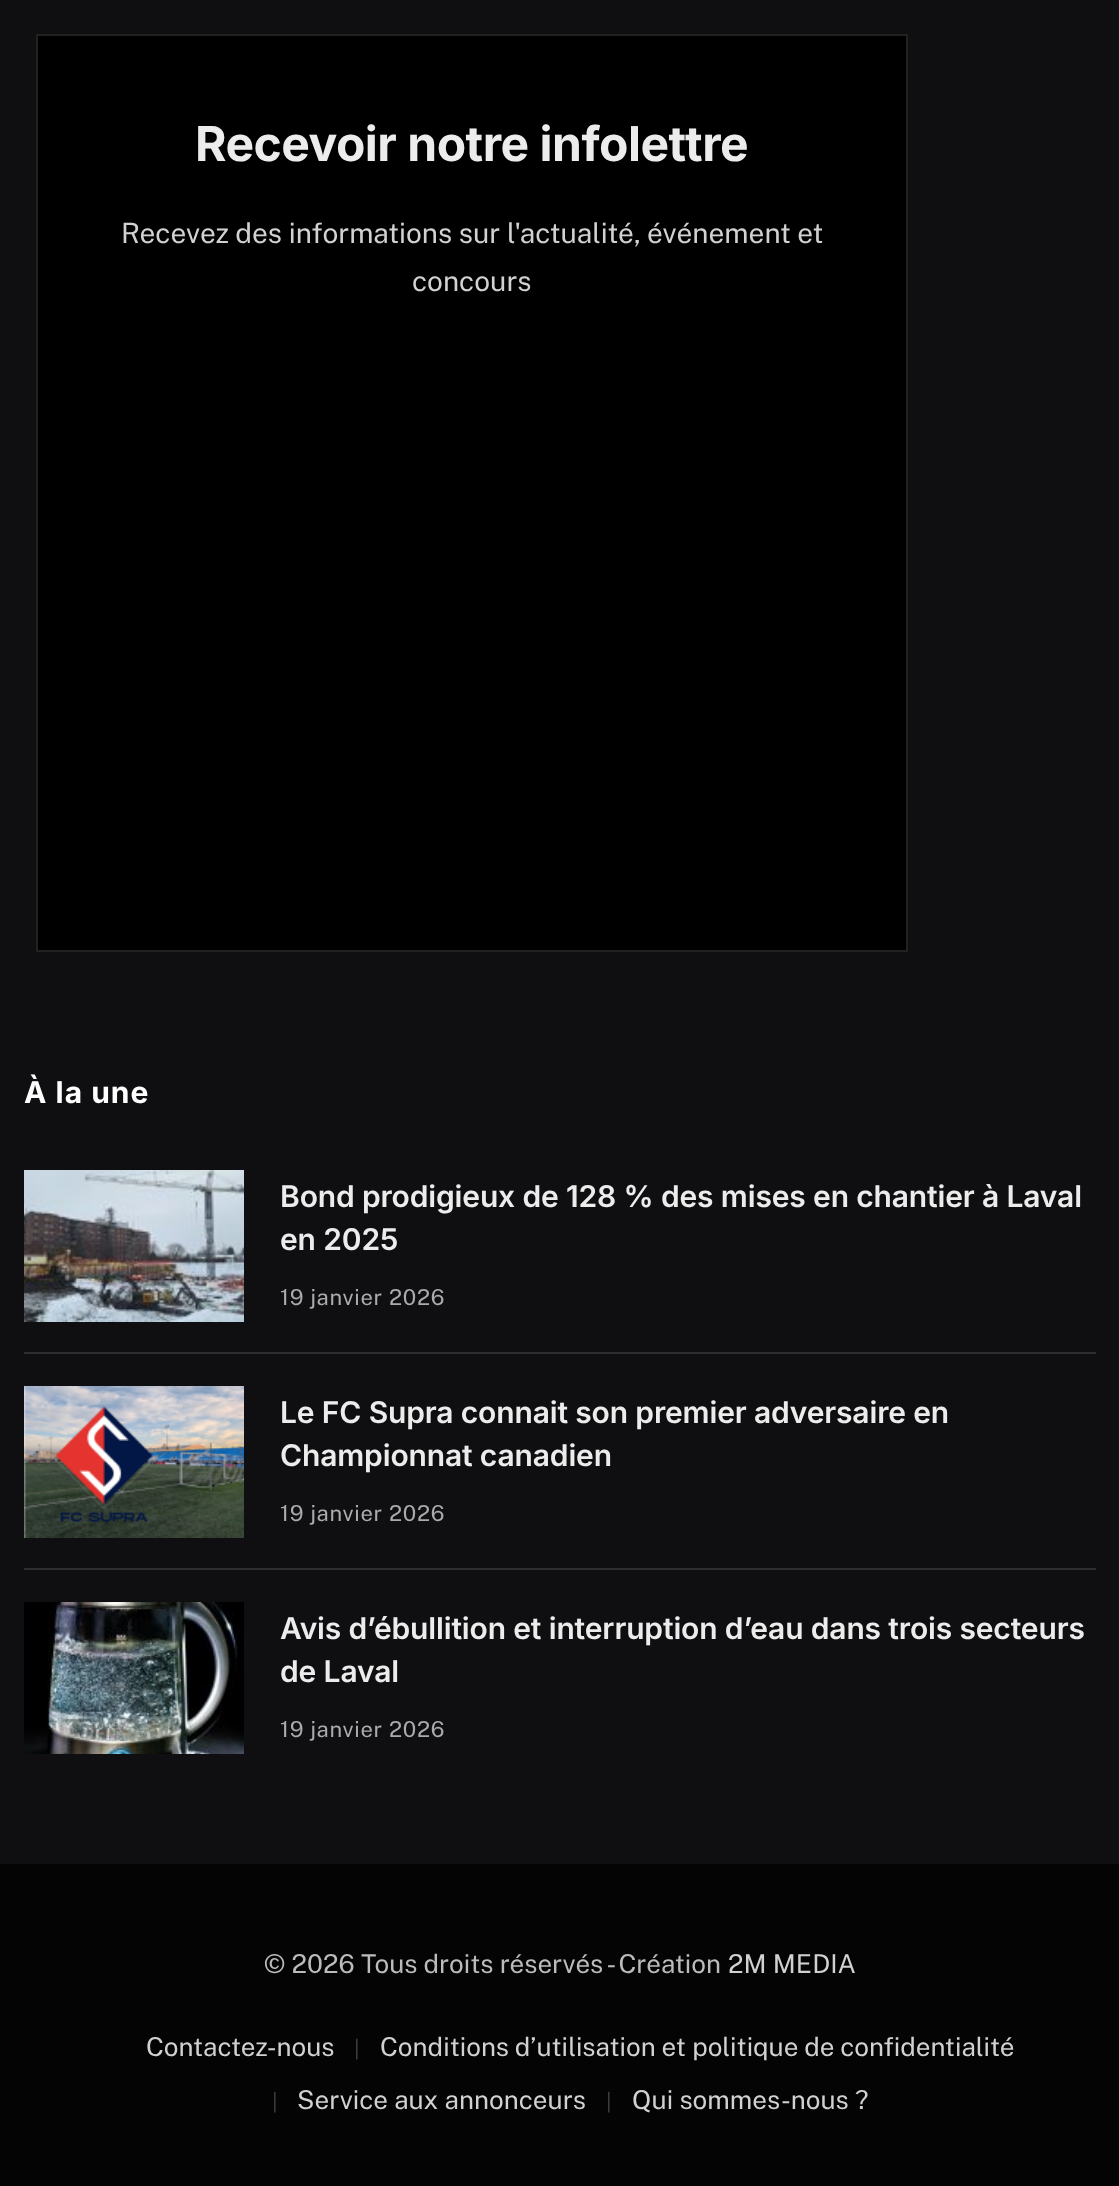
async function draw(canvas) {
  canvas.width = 1119;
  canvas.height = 2186;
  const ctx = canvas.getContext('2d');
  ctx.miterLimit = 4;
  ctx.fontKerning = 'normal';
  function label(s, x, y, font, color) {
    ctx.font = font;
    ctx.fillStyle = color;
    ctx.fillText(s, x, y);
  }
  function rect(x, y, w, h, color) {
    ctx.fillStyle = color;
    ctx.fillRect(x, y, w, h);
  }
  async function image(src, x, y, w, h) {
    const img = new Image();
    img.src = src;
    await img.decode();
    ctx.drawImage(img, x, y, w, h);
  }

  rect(0, 0, 1119, 2186, '#0f0f11');
  ctx.fillStyle = '#000';
  ctx.beginPath();
  ctx.rect(37, 35, 870, 916);
  ctx.fill();
  ctx.strokeStyle = '#212121';
  ctx.lineWidth = 2;
  ctx.stroke();
  ctx.letterSpacing = '-0.5px';
  label('Recevoir notre infolettre', 195, 161, 'bold 48px Inter', '#ececec');
  ctx.letterSpacing = '0px';
  label('Recevez des informations sur l\'actualité, événement et', 121, 243, '28px Public Sans', '#d1d1d1');
  label('concours', 412, 291, '28px Public Sans', '#d1d1d1');
  ctx.letterSpacing = '1px';
  label('À la une', 24, 1103, 'bold 30px Inter', '#fff');
  await image('assets/img1.png', 24, 1170, 220, 152);
  ctx.letterSpacing = '-0.15px';
  label('Bond prodigieux de 128 % des mises en chantier à Laval', 280, 1207, '600 30px Inter', '#ececec');
  label('en 2025', 280, 1250, '600 30px Inter', '#ececec');
  ctx.letterSpacing = '0.7px';
  label('19 janvier 2026', 280, 1305, '22px Public Sans', '#ababac');
  rect(24, 1352, 1072, 2, '#2e2e30');
  await image('assets/img2.png', 24, 1386, 220, 152);
  ctx.letterSpacing = '-0.15px';
  label('Le FC Supra connait son premier adversaire en', 280, 1423, '600 30px Inter', '#ececec');
  label('Championnat canadien', 280, 1466, '600 30px Inter', '#ececec');
  ctx.letterSpacing = '0.7px';
  label('19 janvier 2026', 280, 1521, '22px Public Sans', '#ababac');
  rect(24, 1568, 1072, 2, '#2e2e30');
  await image('assets/img3.png', 24, 1602, 220, 152);
  ctx.letterSpacing = '-0.15px';
  label('Avis d’ébullition et interruption d’eau dans trois secteurs', 280, 1639, '600 30px Inter', '#ececec');
  label('de Laval', 280, 1682, '600 30px Inter', '#ececec');
  ctx.letterSpacing = '0.7px';
  label('19 janvier 2026', 280, 1737, '22px Public Sans', '#ababac');
  rect(0, 1864, 1119, 322, '#040404');
  ctx.letterSpacing = '0px';
  label('© 2026 Tous droits réservés - Création', 264, 1973, '26px Public Sans', '#bbb');
  label('2M MEDIA', 728, 1973, '26px Public Sans', '#d1d1d1');
  label('Contactez-nous', 146, 2056, '26px Public Sans', '#d1d1d1');
  label('|', 354, 2056, '21px Public Sans', '#3b3b3b');
  label('Conditions d’utilisation et politique de confidentialité', 380, 2056, '26px Public Sans', '#d1d1d1');
  label('|', 272, 2109, '21px Public Sans', '#3b3b3b');
  label('Service aux annonceurs', 297, 2109, '26px Public Sans', '#d1d1d1');
  label('|', 606, 2109, '21px Public Sans', '#3b3b3b');
  label('Qui sommes-nous ?', 632, 2109, '26px Public Sans', '#d1d1d1');
}

draw(document.querySelector('canvas'));
